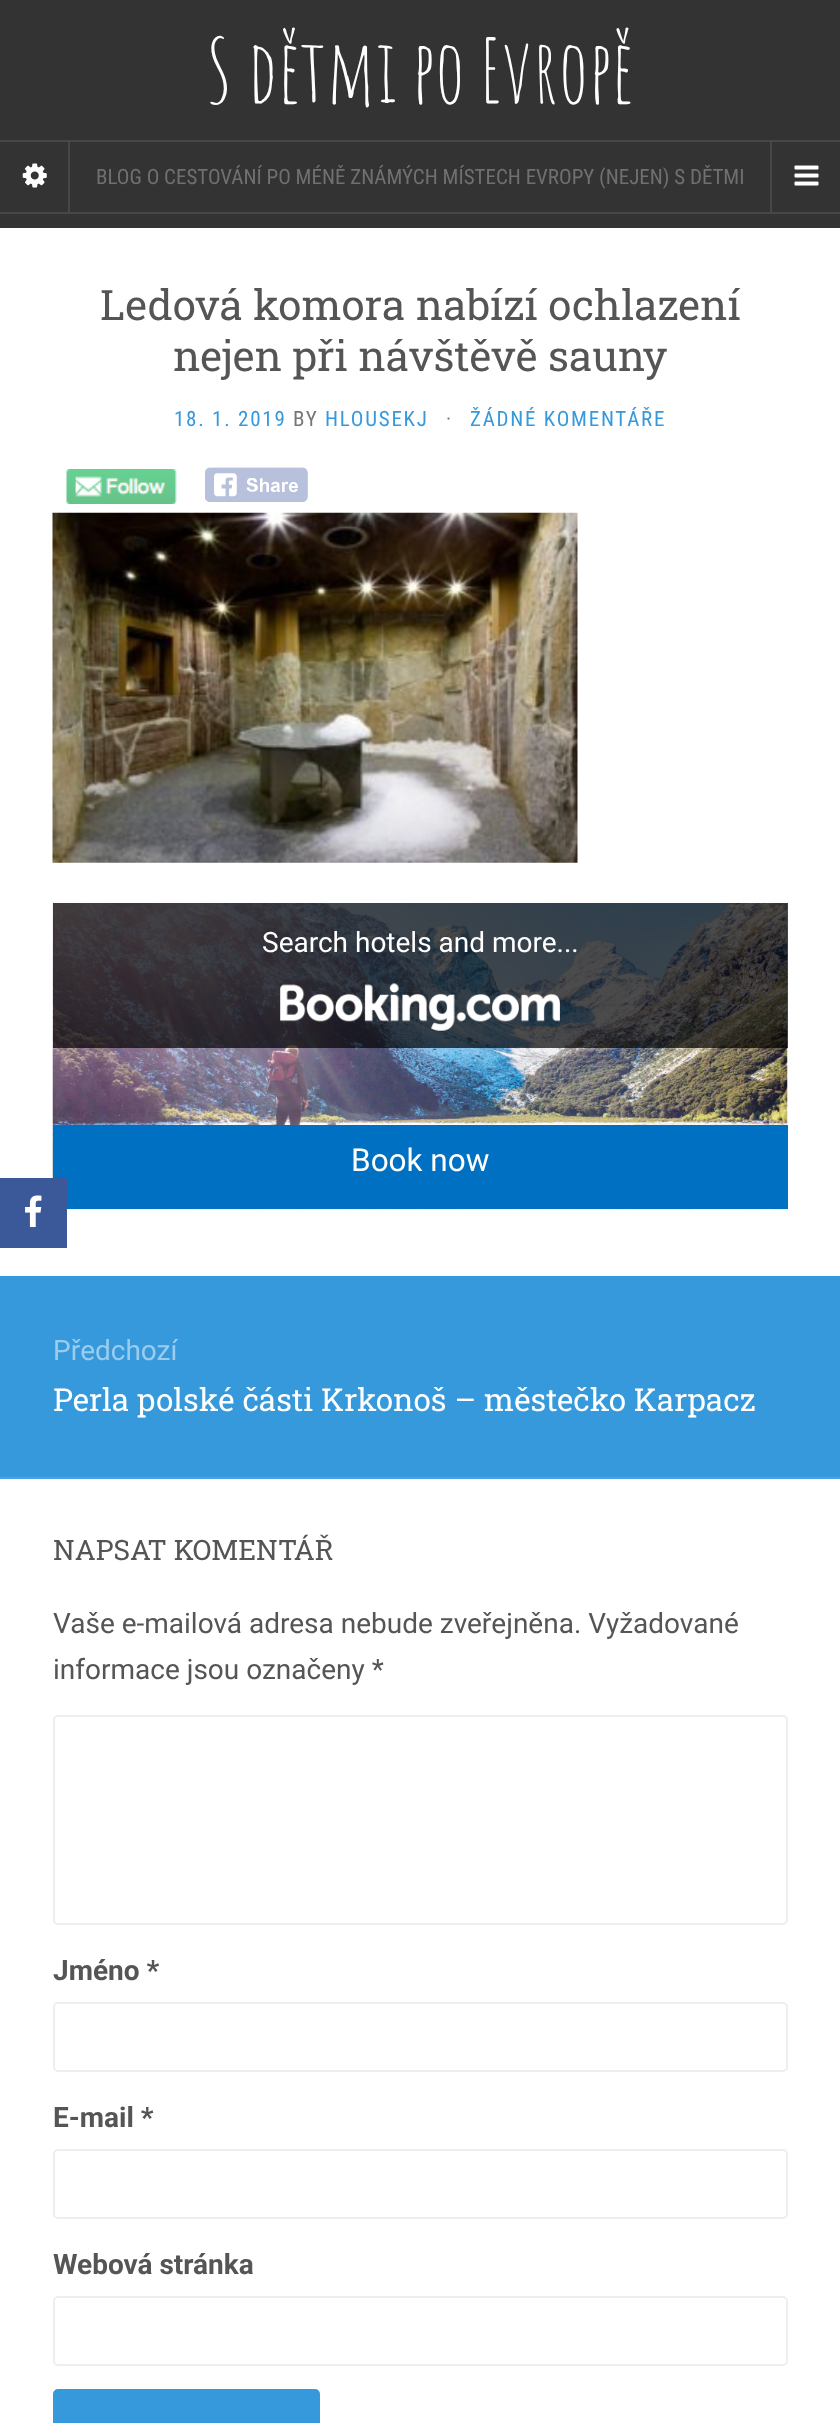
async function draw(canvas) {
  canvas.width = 840;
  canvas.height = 2423;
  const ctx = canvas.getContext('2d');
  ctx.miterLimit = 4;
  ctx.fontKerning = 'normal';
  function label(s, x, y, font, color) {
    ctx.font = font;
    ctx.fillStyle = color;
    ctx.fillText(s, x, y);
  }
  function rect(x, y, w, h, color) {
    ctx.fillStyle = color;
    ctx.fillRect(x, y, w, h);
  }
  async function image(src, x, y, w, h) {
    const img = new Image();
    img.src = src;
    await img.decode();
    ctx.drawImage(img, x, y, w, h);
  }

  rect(0, 0, 840, 2423, '#333');
  rect(0, 228, 840, 2195, '#fff');
  await image('assets/img7.png', 52, 903, 736, 307);
  rect(53, 1125, 735, 84, '#0071c2');
  rect(0, 1178, 67, 70, '#3b5998');
  await image('assets/img1.png', 25, 1195, 17, 32);
  rect(68, 142, 2, 70, '#474747');
  await image('assets/img2.png', 22, 163, 25, 25);
  rect(0, 212, 840, 2, '#474747');
  rect(0, 140, 840, 2, '#474747');
  label('S dětmi po Evropě', 206, 103, '87.5px Amatic SC', '#fff');
  label('BLOG O CESTOVÁNÍ PO MÉNĚ ZNÁMÝCH MÍSTECH EVROPY (NEJEN) S DĚTMI', 96, 184, '21px Roboto Condensed', '#707070');
  rect(770, 142, 2, 70, '#474747');
  await image('assets/img3.png', 794, 165, 25, 21);
  label('Ledová komora nabízí ochlazení', 100, 320, '42px Roboto Slab', '#555');
  label('nejen při návštěvě sauny', 173, 371, '42px Roboto Slab', '#555');
  ctx.letterSpacing = '1.75px';
  label('18. 1. 2019', 174, 426, '21px Roboto Condensed', '#3699dc');
  label('BY', 293, 426, '21px Roboto Condensed', '#777');
  label('HLOUSEKJ', 325, 426, '21px Roboto Condensed', '#3699dc');
  label('·', 446, 426, '21px Roboto Condensed', '#777');
  label('ŽÁDNÉ KOMENTÁŘE', 470, 426, '21px Roboto Condensed', '#3699dc');
  await image('assets/img4.png', 66, 469, 111, 35);
  await image('assets/img5.png', 205, 467, 103, 35);
  await image('assets/img6.png', 52, 512, 526, 351);
  rect(53, 903, 735, 145, '#000000b3');
  ctx.letterSpacing = '0px';
  label('Search hotels and more...', 262, 952, '28px Roboto', '#fff');
  await image('assets/img8.png', 280, 983, 280, 48);
  label('Book now', 351, 1171, '31.5px Roboto', '#fff');
  rect(0, 1276, 840, 201, '#3699dc');
  rect(0, 1477, 840, 2, '#4aa3e0');
  label('Předchozí', 53, 1360, '28px Roboto', '#9bccee');
  label('Perla polské části Krkonoš – městečko Karpacz', 53, 1411, '31.5px Roboto Slab', '#fff');
  label('NAPSAT KOMENTÁŘ', 53, 1560, '28px Roboto Slab', '#555');
  label('Vaše e-mailová adresa nebude zveřejněna. Vyžadované', 53, 1633, '28px Roboto', '#555');
  label('informace jsou označeny *', 53, 1679, '28px Roboto', '#555');
  ctx.beginPath();
  ctx.roundRect(54, 1716, 733, 208, 4);
  ctx.strokeStyle = '#eee';
  ctx.lineWidth = 2;
  ctx.stroke();
  label('Jméno *', 53, 1980, 'bold 28px Roboto', '#555');
  ctx.beginPath();
  ctx.roundRect(54, 2003, 733, 68, 4);
  ctx.stroke();
  label('E-mail *', 53, 2127, 'bold 28px Roboto', '#555');
  ctx.beginPath();
  ctx.roundRect(54, 2150, 733, 68, 4);
  ctx.stroke();
  label('Webová stránka', 53, 2274, 'bold 28px Roboto', '#555');
  ctx.beginPath();
  ctx.roundRect(54, 2297, 733, 68, 4);
  ctx.stroke();
  ctx.fillStyle = '#3699dc';
  ctx.beginPath();
  ctx.roundRect(54, 2390, 265, 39, 4);
  ctx.fill();
  ctx.strokeStyle = '#3699dc';
  ctx.stroke();
}

draw(document.querySelector('canvas'));
